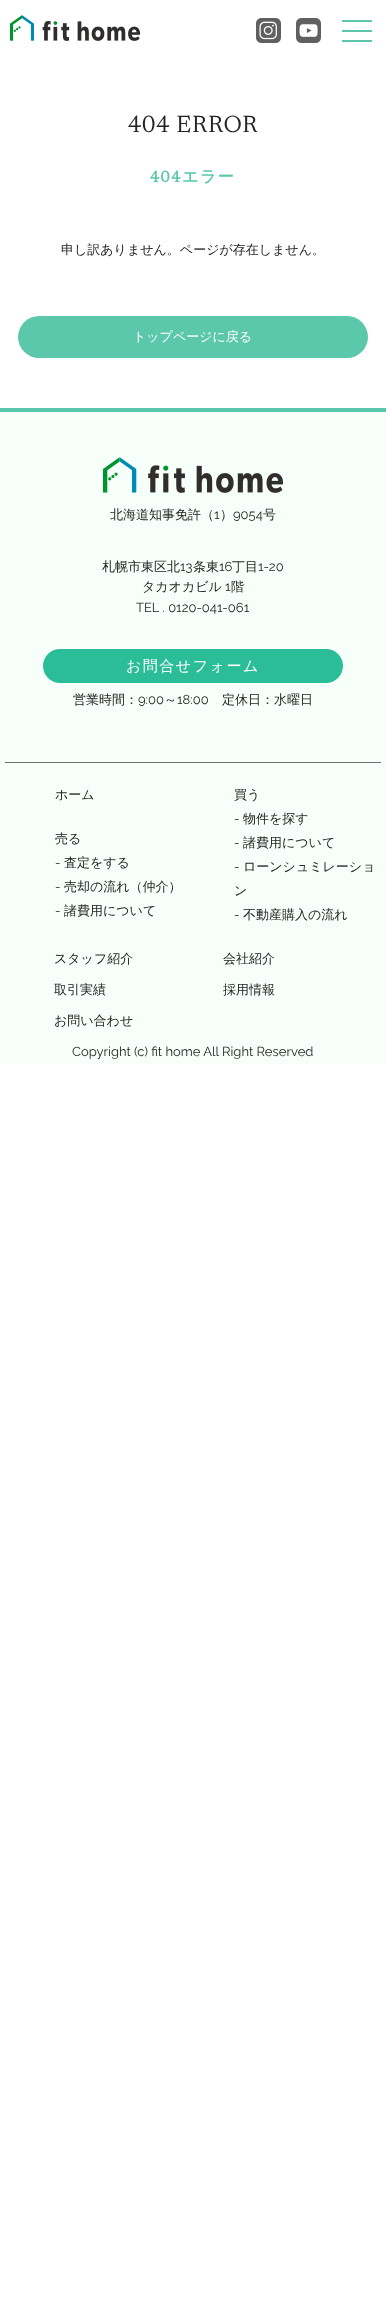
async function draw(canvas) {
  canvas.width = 386;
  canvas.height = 2313;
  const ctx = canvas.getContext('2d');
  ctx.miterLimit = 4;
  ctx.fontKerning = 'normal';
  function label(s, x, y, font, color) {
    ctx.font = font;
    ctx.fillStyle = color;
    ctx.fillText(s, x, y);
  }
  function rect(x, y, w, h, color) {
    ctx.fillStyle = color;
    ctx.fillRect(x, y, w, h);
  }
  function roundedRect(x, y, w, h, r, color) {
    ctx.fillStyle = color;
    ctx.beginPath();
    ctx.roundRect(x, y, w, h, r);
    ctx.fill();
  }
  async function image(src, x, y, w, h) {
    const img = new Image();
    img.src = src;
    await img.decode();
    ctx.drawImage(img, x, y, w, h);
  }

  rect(0, 0, 386, 2313, '#fff');
  await image('assets/img1.png', 10, 15, 130, 26);
  await image('assets/img2.png', 256, 18, 25, 25);
  await image('assets/img3.png', 296, 18, 25, 25);
  rect(342, 20, 30, 2, '#5bc8ac');
  rect(342, 30, 30, 2, '#5bc8ac');
  rect(342, 40, 30, 2, '#5bc8ac');
  ctx.letterSpacing = '0.75px';
  label('404 ERROR', 128, 132, '24px Newsreader', '#252525');
  ctx.letterSpacing = '1.5px';
  label('404', 150, 182, 'bold 16px Newsreader', '#5bc8ac');
  label('エラー', 182, 182, 'bold 16px WenQuanYi Zen Hei', '#5bc8ac');
  ctx.letterSpacing = '0px';
  label('申し訳ありません。ページが存在しません。', 61, 254, '500 13px WenQuanYi Zen Hei', '#252525');
  roundedRect(18, 316, 350, 42, 21, '#5bc8ac');
  label('トップページに戻る', 133, 341, '500 13px WenQuanYi Zen Hei', '#fff');
  rect(0, 412, 386, 652, '#f7fffa');
  rect(0, 408, 386, 4, '#5bc8ac');
  await image('assets/img4.png', 103, 457, 180, 36);
  label('北海道知事免許（', 110, 519, '500 13px WenQuanYi Zen Hei', '#252525');
  label('1', 214, 519, '13px Raleway', '#252525');
  label('）', 220, 519, '500 13px WenQuanYi Zen Hei', '#252525');
  label('9054', 233, 519, '13px Raleway', '#252525');
  label('号', 263, 519, '500 13px WenQuanYi Zen Hei', '#252525');
  label('札幌市東区北', 102, 571, '500 13px WenQuanYi Zen Hei', '#252525');
  label('13', 180, 571, '13px Raleway', '#252525');
  label('条東', 193, 571, '500 13px WenQuanYi Zen Hei', '#252525');
  label('16', 219, 571, '13px Raleway', '#252525');
  label('丁目', 232, 571, '500 13px WenQuanYi Zen Hei', '#252525');
  label('1-20', 258, 571, '13px Raleway', '#252525');
  label('タカオカビル', 142, 591, '500 13px WenQuanYi Zen Hei', '#252525');
  label('1', 225, 591, '13px Raleway', '#252525');
  label('階', 231, 591, '500 13px WenQuanYi Zen Hei', '#252525');
  label('TEL . 0120-041-061', 136, 612, '13px Raleway', '#252525');
  roundedRect(43, 649, 300, 34, 17, '#2bbc98');
  ctx.letterSpacing = '1.5px';
  label('お問合せフォーム', 126, 671, '500 15px WenQuanYi Zen Hei', '#fff');
  ctx.letterSpacing = '0px';
  label('営業時間：', 73, 704, '500 13px WenQuanYi Zen Hei', '#252525');
  label('9:00', 138, 704, '13px Raleway', '#252525');
  label('～', 164, 704, '500 13px WenQuanYi Zen Hei', '#252525');
  label('18:00', 177, 704, '13px Raleway', '#252525');
  label('定休日：水曜日', 222, 704, '500 13px WenQuanYi Zen Hei', '#252525');
  rect(5, 762, 376, 1, '#707070');
  label('ホーム', 55, 799, '500 13px WenQuanYi Zen Hei', '#252525');
  label('売る', 55, 843, '500 13px WenQuanYi Zen Hei', '#252525');
  label('-', 55, 867, '13px Raleway', '#252525');
  label('査定をする', 64, 867, '500 13px WenQuanYi Zen Hei', '#252525');
  label('-', 55, 891, '13px Raleway', '#252525');
  label('売却の流れ（仲介）', 64, 891, '500 13px WenQuanYi Zen Hei', '#252525');
  label('-', 55, 915, '13px Raleway', '#252525');
  label('諸費用について', 64, 915, '500 13px WenQuanYi Zen Hei', '#252525');
  label('買う', 234, 799, '500 13px WenQuanYi Zen Hei', '#252525');
  label('-', 234, 823, '13px Raleway', '#252525');
  label('物件を探す', 243, 823, '500 13px WenQuanYi Zen Hei', '#252525');
  label('-', 234, 847, '13px Raleway', '#252525');
  label('諸費用について', 243, 847, '500 13px WenQuanYi Zen Hei', '#252525');
  label('-', 234, 871, '13px Raleway', '#252525');
  label('ローンシュミレーショ', 243, 871, '500 13px WenQuanYi Zen Hei', '#252525');
  label('ン', 234, 895, '500 13px WenQuanYi Zen Hei', '#252525');
  label('-', 234, 919, '13px Raleway', '#252525');
  label('不動産購入の流れ', 243, 919, '500 13px WenQuanYi Zen Hei', '#252525');
  label('スタッフ紹介', 54, 963, '500 13px WenQuanYi Zen Hei', '#252525');
  label('会社紹介', 223, 963, '500 13px WenQuanYi Zen Hei', '#252525');
  label('取引実績', 54, 994, '500 13px WenQuanYi Zen Hei', '#252525');
  label('採用情報', 223, 994, '500 13px WenQuanYi Zen Hei', '#252525');
  label('お問い合わせ', 54, 1025, '500 13px WenQuanYi Zen Hei', '#252525');
  label('Copyright (c) fit home All Right Reserved', 72, 1056, '13px Raleway', '#252525');
}

draw(document.querySelector('canvas'));
